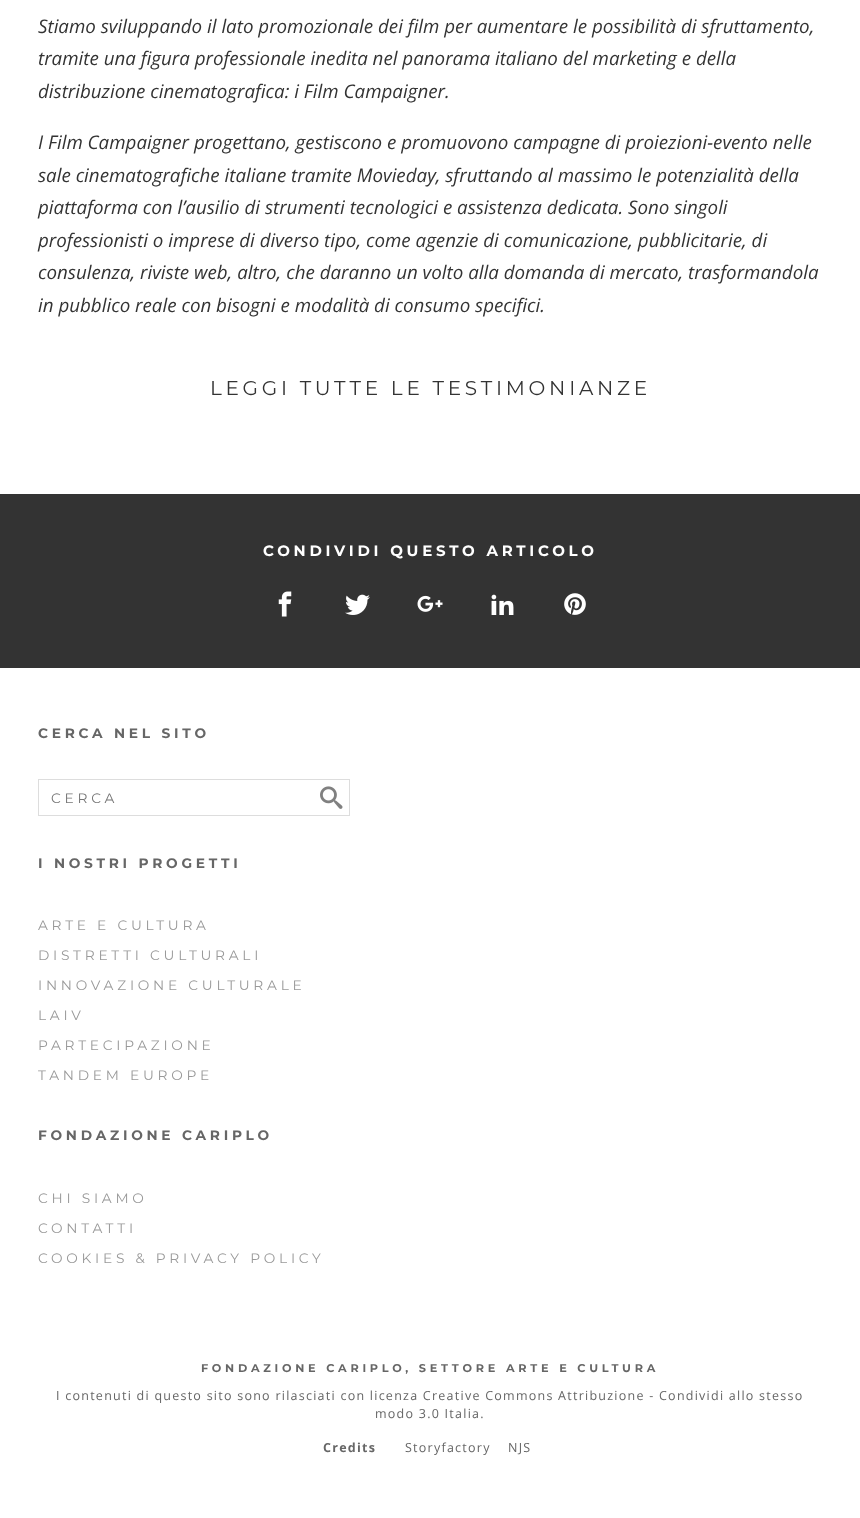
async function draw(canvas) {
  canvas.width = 860;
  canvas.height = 1518;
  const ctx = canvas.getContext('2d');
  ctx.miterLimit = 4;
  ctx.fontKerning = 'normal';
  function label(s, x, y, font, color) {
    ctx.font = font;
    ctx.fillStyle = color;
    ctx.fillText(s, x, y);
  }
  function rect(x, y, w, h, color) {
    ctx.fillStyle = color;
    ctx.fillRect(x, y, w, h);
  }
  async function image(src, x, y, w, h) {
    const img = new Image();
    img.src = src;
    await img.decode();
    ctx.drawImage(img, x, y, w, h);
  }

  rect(0, 0, 860, 1518, '#fff');
  label('Stiamo sviluppando il lato promozionale dei film per aumentare le possibilità di sfruttamento,', 38, 33, 'italic 18.75px Open Sans', '#333');
  label('tramite una figura professionale inedita nel panorama italiano del marketing e della', 38, 65, 'italic 18.75px Open Sans', '#333');
  label('distribuzione cinematografica: i Film Campaigner.', 38, 98, 'italic 18.75px Open Sans', '#333');
  label('I Film Campaigner progettano, gestiscono e promuovono campagne di proiezioni-evento nelle', 38, 149, 'italic 18.75px Open Sans', '#333');
  label('sale cinematografiche italiane tramite Movieday, sfruttando al massimo le potenzialità della', 38, 182, 'italic 18.75px Open Sans', '#333');
  label('piattaforma con l’ausilio di strumenti tecnologici e assistenza dedicata. Sono singoli', 38, 214, 'italic 18.75px Open Sans', '#333');
  label('professionisti o imprese di diverso tipo, come agenzie di comunicazione, pubblicitarie, di', 38, 247, 'italic 18.75px Open Sans', '#333');
  label('consulenza, riviste web, altro, che daranno un volto alla domanda di mercato, trasformandola', 38, 279, 'italic 18.75px Open Sans', '#333');
  label('in pubblico reale con bisogni e modalità di consumo specifici.', 38, 312, 'italic 18.75px Open Sans', '#333');
  ctx.letterSpacing = '3.75px';
  label('LEGGI TUTTE LE TESTIMONIANZE', 210, 395, '20px Montserrat', '#333');
  rect(0, 494, 860, 174, '#333');
  label('CONDIVIDI QUESTO ARTICOLO', 263, 556, 'bold 15px Montserrat', '#fff');
  await image('assets/img1.png', 278, 591, 14, 26);
  await image('assets/img2.png', 345, 594, 25, 21);
  await image('assets/img3.png', 417, 595, 26, 17);
  await image('assets/img4.png', 491, 594, 23, 21);
  await image('assets/img5.png', 564, 593, 22, 22);
  label('CERCA NEL SITO', 38, 738, 'bold 13.75px Montserrat', '#666');
  ctx.strokeStyle = '#ddd';
  ctx.strokeRect(38.5, 779.5, 311, 36);
  label('CERCA', 51, 803, '13.75px Montserrat', '#757575');
  await image('assets/img6.png', 320, 786, 23, 23);
  label('I NOSTRI PROGETTI', 38, 868, 'bold 13.75px Montserrat', '#666');
  label('ARTE E CULTURA', 38, 930, '13.75px Montserrat', '#999');
  label('DISTRETTI CULTURALI', 38, 960, '13.75px Montserrat', '#999');
  label('INNOVAZIONE CULTURALE', 38, 990, '13.75px Montserrat', '#999');
  label('LAIV', 38, 1020, '13.75px Montserrat', '#999');
  label('PARTECIPAZIONE', 38, 1050, '13.75px Montserrat', '#999');
  label('TANDEM EUROPE', 38, 1080, '13.75px Montserrat', '#999');
  label('FONDAZIONE CARIPLO', 38, 1140, 'bold 13.75px Montserrat', '#666');
  label('CHI SIAMO', 38, 1203, '13.75px Montserrat', '#999');
  label('CONTATTI', 38, 1233, '13.75px Montserrat', '#999');
  label('COOKIES & PRIVACY POLICY', 38, 1263, '13.75px Montserrat', '#999');
  label('FONDAZIONE CARIPLO, SETTORE ARTE E CULTURA', 201, 1372, 'bold 11.25px Montserrat', '#666');
  ctx.letterSpacing = '1.25px';
  label('I contenuti di questo sito sono rilasciati con licenza Creative Commons Attribuzione - Condividi allo stesso', 56, 1400, '12.5px Open Sans', '#666');
  label('modo 3.0 Italia.', 375, 1418, '12.5px Open Sans', '#666');
  label('Credits', 323, 1452, 'bold 12.5px Open Sans', '#666');
  label('Storyfactory', 405, 1452, '12.5px Open Sans', '#666');
  label('NJS', 508, 1452, '12.5px Open Sans', '#666');
}

draw(document.querySelector('canvas'));
